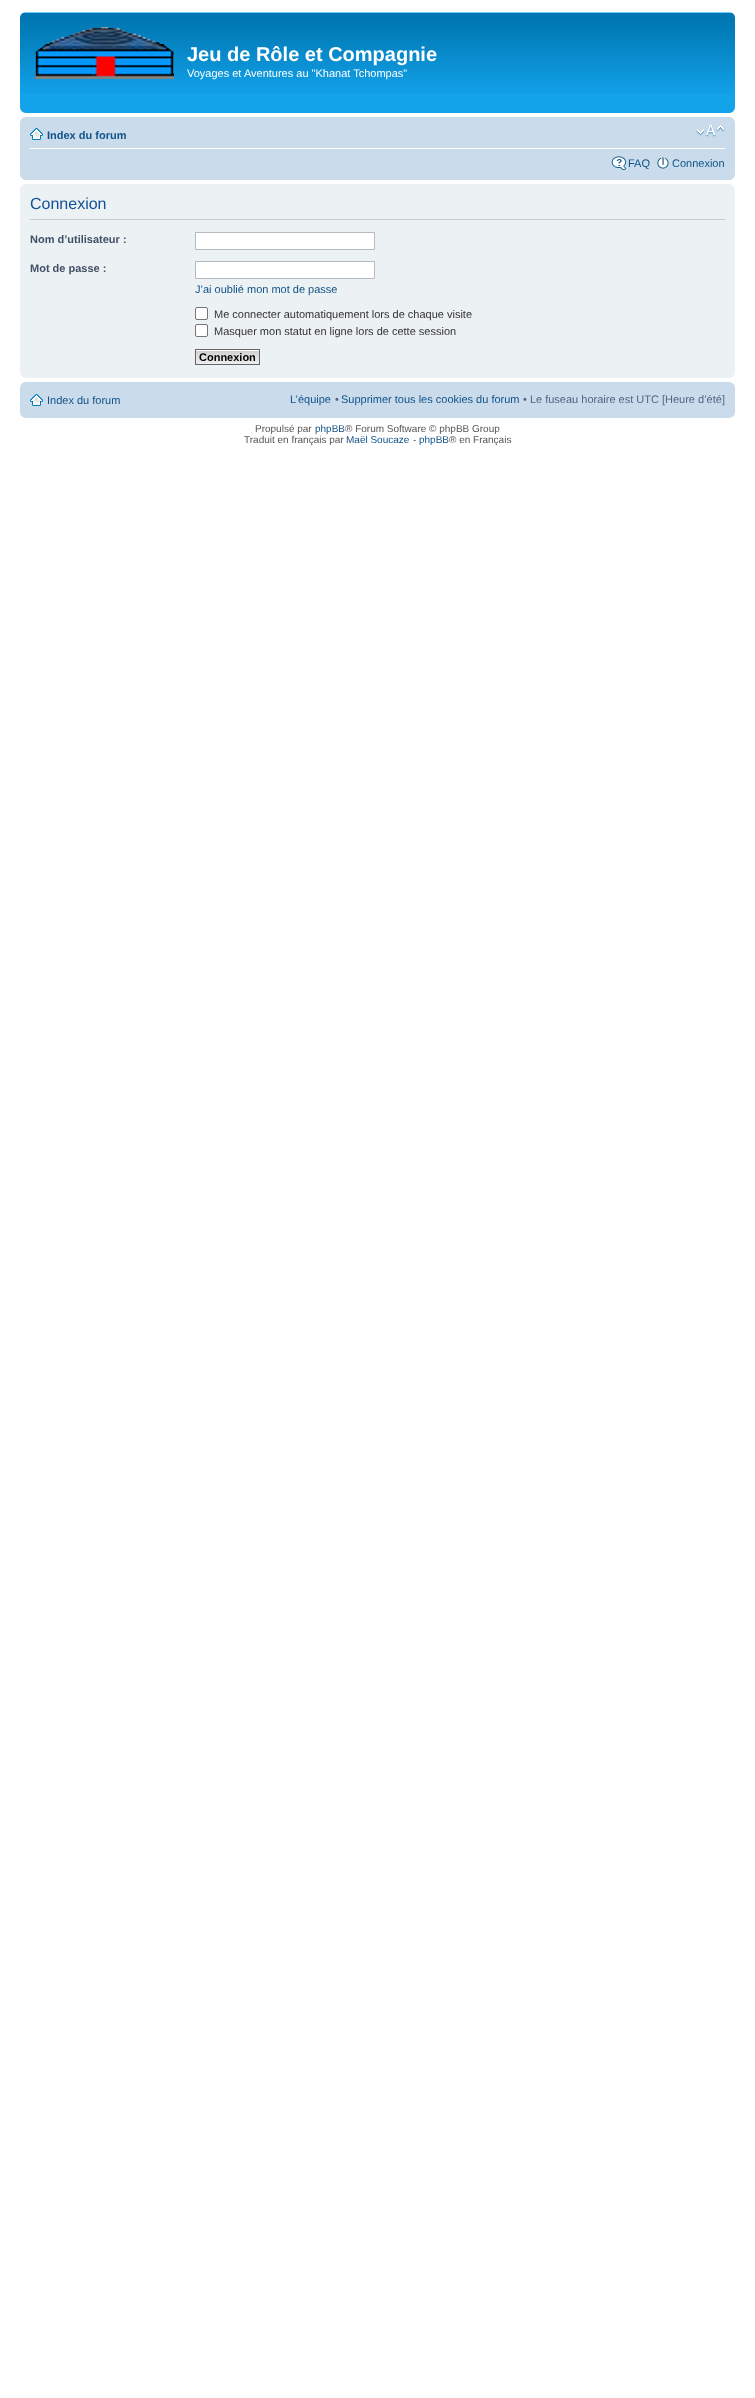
async function draw(canvas) {
  canvas.width = 755;
  canvas.height = 2398;
  const ctx = canvas.getContext('2d');
  ctx.miterLimit = 4;
  ctx.fontKerning = 'normal';
  function label(s, x, y, font, color) {
    ctx.font = font;
    ctx.fillStyle = color;
    ctx.fillText(s, x, y);
  }
  function rect(x, y, w, h, color) {
    ctx.fillStyle = color;
    ctx.fillRect(x, y, w, h);
  }
  async function image(src, x, y, w, h) {
    const img = new Image();
    img.src = src;
    await img.decode();
    ctx.drawImage(img, x, y, w, h);
  }

  rect(0, 0, 755, 2398, '#fff');
  rect(20, 94, 715, 19, '#12a3eb');
  await image('assets/img1.png', 20, 12, 715, 82);
  await image('assets/img2.png', 20, 12, 5, 5);
  await image('assets/img3.png', 730, 12, 5, 5);
  await image('assets/img4.png', 35, 27, 139, 52);
  label('Jeu de Rôle et Compagnie', 187, 61, 'bold 20px Liberation Sans', '#fff');
  label('Voyages et Aventures au "Khanat Tchompas"', 187, 77, '11px Liberation Sans', '#fff');
  await image('assets/img5.png', 20, 108, 5, 5);
  await image('assets/img6.png', 730, 108, 5, 5);
  rect(20, 117, 715, 63, '#cadceb');
  await image('assets/img7.png', 20, 117, 5, 5);
  await image('assets/img8.png', 730, 117, 5, 5);
  rect(30, 148, 695, 1, '#fff');
  await image('assets/img9.png', 30, 128, 13, 12);
  label('Index du forum', 47, 139, 'bold 11px Liberation Sans', '#105289');
  await image('assets/img10.png', 696, 125, 29, 12);
  await image('assets/img11.png', 611, 156, 16, 14);
  label('FAQ', 628, 167, '11px Liberation Sans', '#105289');
  await image('assets/img12.png', 657, 157, 12, 12);
  label('Connexion', 672, 167, '11px Liberation Sans', '#105289');
  await image('assets/img13.png', 20, 175, 5, 5);
  await image('assets/img14.png', 730, 175, 5, 5);
  rect(20, 184, 715, 194, '#ecf1f3');
  await image('assets/img15.png', 20, 184, 5, 5);
  await image('assets/img16.png', 730, 184, 5, 5);
  rect(30, 219, 695, 1, '#ccc');
  label('Connexion', 30, 209, '16px Liberation Sans', '#115098');
  label('Nom d’utilisateur :', 30, 243, 'bold 11px Liberation Sans', '#425067');
  ctx.fillStyle = '#fff';
  ctx.beginPath();
  ctx.rect(195.5, 232.5, 179, 17);
  ctx.fill();
  ctx.strokeStyle = '#b4bac0';
  ctx.stroke();
  label('Mot de passe :', 30, 272, 'bold 11px Liberation Sans', '#425067');
  ctx.fillStyle = '#fff';
  ctx.beginPath();
  ctx.rect(195.5, 261.5, 179, 17);
  ctx.fill();
  ctx.stroke();
  label('J’ai oublié mon mot de passe', 195, 293, '11px Liberation Sans', '#105289');
  ctx.fillStyle = '#fff';
  ctx.beginPath();
  ctx.roundRect(195.5, 307.5, 12, 12, 1.5);
  ctx.fill();
  ctx.strokeStyle = '#767676';
  ctx.stroke();
  label('Me connecter automatiquement lors de chaque visite', 214, 318, '11px Liberation Sans', '#333');
  ctx.fillStyle = '#fff';
  ctx.beginPath();
  ctx.roundRect(195.5, 324.5, 12, 12, 1.5);
  ctx.fill();
  ctx.stroke();
  label('Masquer mon statut en ligne lors de cette session', 214, 335, '11px Liberation Sans', '#333');
  await image('assets/img17.png', 196, 350, 63, 14);
  ctx.strokeStyle = '#666';
  ctx.strokeRect(195.5, 349.5, 64, 15);
  label('Connexion', 199, 361, 'bold 11px Liberation Sans', '#000');
  await image('assets/img18.png', 20, 373, 5, 5);
  await image('assets/img19.png', 730, 373, 5, 5);
  rect(20, 382, 715, 36, '#cadceb');
  await image('assets/img7.png', 20, 382, 5, 5);
  await image('assets/img8.png', 730, 382, 5, 5);
  await image('assets/img9.png', 30, 394, 13, 12);
  label('Index du forum', 47, 404, '11px Liberation Sans', '#105289');
  label('L’équipe', 290, 403, '11px Liberation Sans', '#105289');
  label('•', 335, 403, '11px Liberation Sans', '#536482');
  label('Supprimer tous les cookies du forum', 341, 403, '11px Liberation Sans', '#105289');
  label('• Le fuseau horaire est UTC [Heure d’été]', 523, 403, '11px Liberation Sans', '#536482');
  await image('assets/img13.png', 20, 413, 5, 5);
  await image('assets/img14.png', 730, 413, 5, 5);
  label('Propulsé par', 255, 432, '10px Liberation Sans', '#555');
  label('phpBB', 315, 432, '10px Liberation Sans', '#105289');
  label('® Forum Software © phpBB Group', 345, 432, '10px Liberation Sans', '#555');
  label('Traduit en français par', 244, 443, '10px Liberation Sans', '#555');
  label('Maël Soucaze', 346, 443, '10px Liberation Sans', '#105289');
  label('-', 413, 443, '10px Liberation Sans', '#555');
  label('phpBB', 419, 443, '10px Liberation Sans', '#105289');
  label('® en Français', 449, 443, '10px Liberation Sans', '#555');
}

draw(document.querySelector('canvas'));
